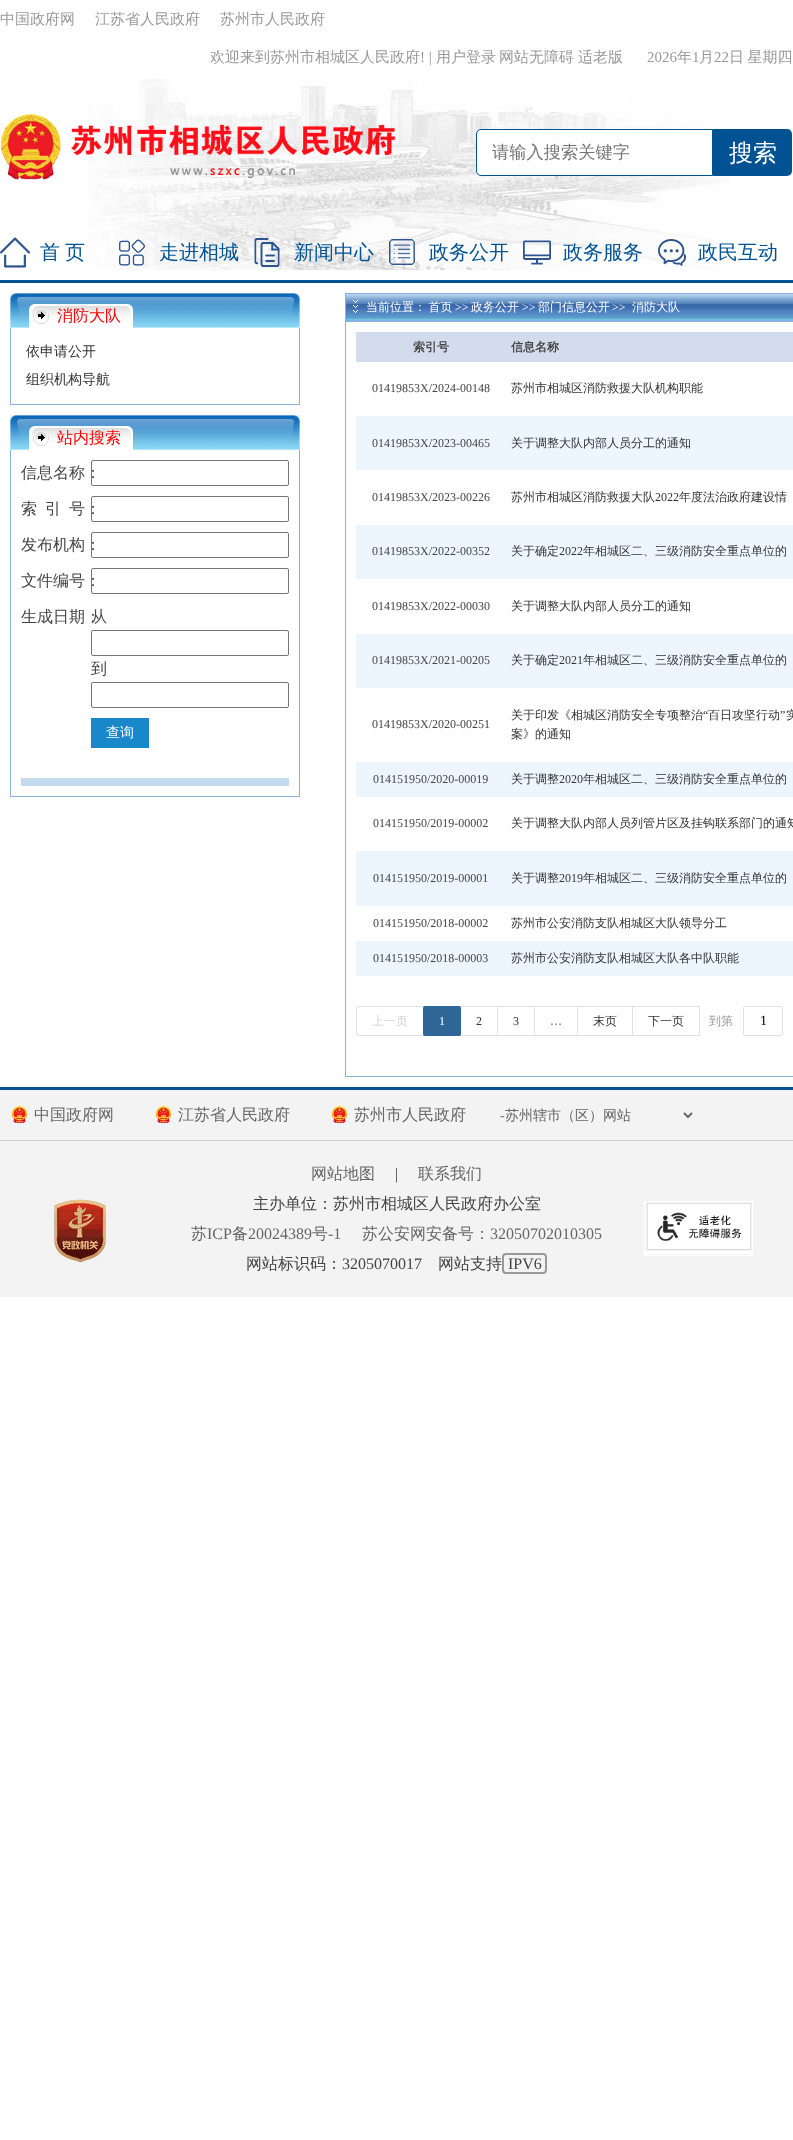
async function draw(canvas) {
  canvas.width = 793;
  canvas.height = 2140;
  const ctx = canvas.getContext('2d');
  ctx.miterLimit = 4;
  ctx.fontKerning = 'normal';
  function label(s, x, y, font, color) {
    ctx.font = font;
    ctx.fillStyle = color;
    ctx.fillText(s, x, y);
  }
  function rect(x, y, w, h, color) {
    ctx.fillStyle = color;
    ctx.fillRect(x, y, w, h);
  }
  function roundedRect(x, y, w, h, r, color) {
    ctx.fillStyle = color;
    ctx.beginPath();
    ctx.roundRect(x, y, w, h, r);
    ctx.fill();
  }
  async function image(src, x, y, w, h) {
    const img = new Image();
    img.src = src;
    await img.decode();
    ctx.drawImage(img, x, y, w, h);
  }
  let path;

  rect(0, 0, 793, 2140, '#fff');
  await image('assets/img1.png', 88, 79, 642, 191);
  rect(0, 280, 793, 3, '#015293');
  label('中国政府网', 0, 24, '500 15px WenQuanYi Zen Hei', '#999');
  label('江苏省人民政府', 95, 24, '500 15px WenQuanYi Zen Hei', '#999');
  label('苏州市人民政府', 220, 24, '500 15px WenQuanYi Zen Hei', '#999');
  label('欢迎来到苏州市相城区人民政府', 210, 62, '500 15px WenQuanYi Zen Hei', '#999');
  label('! |', 420, 62, '15px Liberation Serif', '#999');
  label('用户登录', 436, 62, '500 15px WenQuanYi Zen Hei', '#999');
  label('网站无障碍', 499, 62, '500 15px WenQuanYi Zen Hei', '#999');
  label('适老版', 578, 62, '500 15px WenQuanYi Zen Hei', '#999');
  label('2026', 647, 62, '15px Liberation Serif', '#999');
  label('年', 677, 62, '500 15px WenQuanYi Zen Hei', '#999');
  label('1', 692, 62, '15px Liberation Serif', '#999');
  label('月', 699, 62, '500 15px WenQuanYi Zen Hei', '#999');
  label('22', 714, 62, '15px Liberation Serif', '#999');
  ctx.wordSpacing = '-1px';
  label('日 星期四', 729, 62, '500 15px WenQuanYi Zen Hei', '#999');
  await image('assets/img2.png', 0, 114, 396, 66);
  ctx.fillStyle = '#fff';
  ctx.beginPath();
  ctx.roundRect(476.5, 129.5, 236, 46, [4.5, 0, 0, 4.5]);
  ctx.fill();
  ctx.strokeStyle = '#015293';
  ctx.stroke();
  ctx.wordSpacing = '0px';
  label('请输入搜索关键字', 492, 158, '500 17.25px WenQuanYi Zen Hei', '#757575');
  ctx.fillStyle = '#015293';
  ctx.beginPath();
  ctx.roundRect(713, 129, 79, 47, [0, 5, 5, 0]);
  ctx.fill();
  label('搜索', 729, 161, '500 24px WenQuanYi Zen Hei', '#fff');
  await image('assets/img3.png', 0, 237, 30, 31);
  ctx.wordSpacing = '-1px';
  label('首 页', 40, 259, '500 20px WenQuanYi Zen Hei', '#005292');
  await image('assets/img4.png', 119, 239, 26, 27);
  ctx.wordSpacing = '0px';
  label('走进相城', 159, 259, '500 20px WenQuanYi Zen Hei', '#005292');
  await image('assets/img5.png', 254, 238, 26, 29);
  label('新闻中心', 294, 259, '500 20px WenQuanYi Zen Hei', '#005292');
  await image('assets/img6.png', 389, 239, 26, 26);
  label('政务公开', 429, 259, '500 20px WenQuanYi Zen Hei', '#005292');
  await image('assets/img7.png', 523, 240, 28, 25);
  label('政务服务', 563, 259, '500 20px WenQuanYi Zen Hei', '#005292');
  await image('assets/img8.png', 658, 239, 28, 27);
  label('政民互动', 698, 259, '500 20px WenQuanYi Zen Hei', '#005292');
  await image('assets/img9.png', 49, 293, 242, 35);
  await image('assets/img10.png', 10, 293, 39, 35);
  await image('assets/img11.png', 49, 303, 77, 25);
  label('消防大队', 57, 321, '500 16px WenQuanYi Zen Hei', '#f00');
  await image('assets/img12.png', 126, 301, 8, 27);
  await image('assets/img13.png', 291, 293, 9, 35);
  rect(299, 328, 1, 77, '#88b2e2');
  rect(10, 404, 290, 1, '#88b2e2');
  rect(10, 328, 1, 77, '#88b2e2');
  label('依申请公开', 26, 356, '500 14px WenQuanYi Zen Hei', '#333');
  label('组织机构导航', 26, 384, '500 14px WenQuanYi Zen Hei', '#333');
  await image('assets/img9.png', 49, 415, 242, 35);
  await image('assets/img10.png', 10, 415, 39, 35);
  await image('assets/img11.png', 49, 425, 77, 25);
  label('站内搜索', 57, 443, '500 16px WenQuanYi Zen Hei', '#f00');
  await image('assets/img12.png', 126, 423, 8, 27);
  await image('assets/img13.png', 291, 415, 9, 35);
  rect(299, 450, 1, 347, '#88b2e2');
  rect(10, 796, 290, 1, '#88b2e2');
  rect(10, 450, 1, 347, '#88b2e2');
  rect(21, 778, 268, 8, '#c4daef');
  ctx.beginPath();
  ctx.roundRect(91.5, 460.5, 197, 25, 1.5);
  ctx.strokeStyle = '#767676';
  ctx.stroke();
  label('信息名称：', 21, 478, '500 16px WenQuanYi Zen Hei', '#444');
  label('索', 21, 514, '500 16px WenQuanYi Zen Hei', '#444');
  label('引', 45, 514, '500 16px WenQuanYi Zen Hei', '#444');
  ctx.beginPath();
  ctx.roundRect(91.5, 496.5, 197, 25, 1.5);
  ctx.stroke();
  label('号：', 69, 514, '500 16px WenQuanYi Zen Hei', '#444');
  ctx.beginPath();
  ctx.roundRect(91.5, 532.5, 197, 25, 1.5);
  ctx.stroke();
  label('发布机构：', 21, 550, '500 16px WenQuanYi Zen Hei', '#444');
  ctx.beginPath();
  ctx.roundRect(91.5, 568.5, 197, 25, 1.5);
  ctx.stroke();
  label('文件编号：', 21, 586, '500 16px WenQuanYi Zen Hei', '#444');
  label('从', 91, 622, '500 16px WenQuanYi Zen Hei', '#444');
  label('生成日期：', 21, 622, '500 16px WenQuanYi Zen Hei', '#444');
  ctx.beginPath();
  ctx.roundRect(91.5, 630.5, 197, 25, 1.5);
  ctx.stroke();
  label('到', 91, 674, '500 16px WenQuanYi Zen Hei', '#444');
  ctx.beginPath();
  ctx.roundRect(91.5, 682.5, 197, 25, 1.5);
  ctx.stroke();
  rect(91, 718, 58, 30, '#1888ca');
  label('查询', 106, 737, '500 14px WenQuanYi Zen Hei', '#fff');
  await image('assets/img14.png', 346, 293, 447, 28);
  rect(345, 293, 1, 28, '#88b2e2');
  await image('assets/img15.png', 346, 294, 14, 20);
  ctx.wordSpacing = '-1px';
  label('当前位置： 首页', 366, 311, '500 12px WenQuanYi Zen Hei', '#fff');
  ctx.wordSpacing = '0px';
  label('>>', 455, 311, '12px Liberation Serif', '#fff');
  label('政务公开', 471, 311, '500 12px WenQuanYi Zen Hei', '#fff');
  label('>>', 522, 311, '12px Liberation Serif', '#fff');
  label('部门信息公开', 538, 311, '500 12px WenQuanYi Zen Hei', '#fff');
  label('>>', 612, 311, '12px Liberation Serif', '#fff');
  label('消防大队', 632, 311, '500 12px WenQuanYi Zen Hei', '#fff');
  ctx.strokeStyle = '#88b2e2';
  ctx.strokeRect(345.5, 321.5, 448, 755);
  rect(356, 332, 437, 30, '#d3dced');
  label('索引号', 413, 351, 'bold 12px WenQuanYi Zen Hei', '#444');
  label('信息名称', 511, 351, 'bold 12px WenQuanYi Zen Hei', '#444');
  label('01419853X/2024-00148', 372, 392, '12px Liberation Serif', '#444');
  label('苏州市相城区消防救援大队机构职能', 511, 392, '500 12px WenQuanYi Zen Hei', '#333');
  rect(356, 416, 437, 54, '#edf6ff');
  label('01419853X/2023-00465', 372, 447, '12px Liberation Serif', '#444');
  label('关于调整大队内部人员分工的通知', 511, 447, '500 12px WenQuanYi Zen Hei', '#333');
  label('01419853X/2023-00226', 372, 501, '12px Liberation Serif', '#444');
  label('苏州市相城区消防救援大队', 511, 501, '500 12px WenQuanYi Zen Hei', '#333');
  label('2022', 655, 501, '12px Liberation Serif', '#333');
  label('年度法治政府建设情', 679, 501, '500 12px WenQuanYi Zen Hei', '#333');
  rect(356, 525, 437, 54, '#edf6ff');
  label('01419853X/2022-00352', 372, 555, '12px Liberation Serif', '#444');
  label('关于确定', 511, 555, '500 12px WenQuanYi Zen Hei', '#333');
  label('2022', 559, 555, '12px Liberation Serif', '#333');
  label('年相城区二、三级消防安全重点单位的', 583, 555, '500 12px WenQuanYi Zen Hei', '#333');
  label('01419853X/2022-00030', 372, 610, '12px Liberation Serif', '#444');
  label('关于调整大队内部人员分工的通知', 511, 610, '500 12px WenQuanYi Zen Hei', '#333');
  rect(356, 634, 437, 54, '#edf6ff');
  label('01419853X/2021-00205', 372, 664, '12px Liberation Serif', '#444');
  label('关于确定', 511, 664, '500 12px WenQuanYi Zen Hei', '#333');
  label('2021', 559, 664, '12px Liberation Serif', '#333');
  label('年相城区二、三级消防安全重点单位的', 583, 664, '500 12px WenQuanYi Zen Hei', '#333');
  label('01419853X/2020-00251', 372, 728, '12px Liberation Serif', '#444');
  label('关于印发《相城区消防安全专项整治', 511, 719, '500 12px WenQuanYi Zen Hei', '#333');
  label('“', 703, 719, '12px Liberation Serif', '#333');
  label('百日攻坚行动', 708, 719, '500 12px WenQuanYi Zen Hei', '#333');
  label('”', 780, 719, '12px Liberation Serif', '#333');
  label('实', 786, 719, '500 12px WenQuanYi Zen Hei', '#333');
  label('案》的通知', 511, 738, '500 12px WenQuanYi Zen Hei', '#333');
  rect(356, 762, 437, 35, '#edf6ff');
  label('014151950/2020-00019', 373, 783, '12px Liberation Serif', '#444');
  label('关于调整', 511, 783, '500 12px WenQuanYi Zen Hei', '#333');
  label('2020', 559, 783, '12px Liberation Serif', '#333');
  label('年相城区二、三级消防安全重点单位的', 583, 783, '500 12px WenQuanYi Zen Hei', '#333');
  label('014151950/2019-00002', 373, 827, '12px Liberation Serif', '#444');
  label('关于调整大队内部人员列管片区及挂钩联系部门的通知', 511, 827, '500 12px WenQuanYi Zen Hei', '#333');
  rect(356, 851, 437, 55, '#edf6ff');
  label('014151950/2019-00001', 373, 882, '12px Liberation Serif', '#444');
  label('关于调整', 511, 882, '500 12px WenQuanYi Zen Hei', '#333');
  label('2019', 559, 882, '12px Liberation Serif', '#333');
  label('年相城区二、三级消防安全重点单位的', 583, 882, '500 12px WenQuanYi Zen Hei', '#333');
  label('014151950/2018-00002', 373, 927, '12px Liberation Serif', '#444');
  label('苏州市公安消防支队相城区大队领导分工', 511, 927, '500 12px WenQuanYi Zen Hei', '#333');
  rect(356, 941, 437, 35, '#edf6ff');
  label('014151950/2018-00003', 373, 962, '12px Liberation Serif', '#444');
  label('苏州市公安消防支队相城区大队各中队职能', 511, 962, '500 12px WenQuanYi Zen Hei', '#333');
  ctx.beginPath();
  ctx.roundRect(356.5, 1006.5, 67, 29, [1.5, 0, 0, 1.5]);
  ctx.strokeStyle = '#e2e2e2';
  ctx.stroke();
  label('上一页', 372, 1025, '500 12px WenQuanYi Zen Hei', '#d2d2d2');
  ctx.strokeRect(460.5, 1006.5, 37, 29);
  ctx.strokeRect(423.5, 1006.5, 37, 29);
  roundedRect(423, 1006, 38, 30, 2, '#2f6698');
  label('1', 439, 1025, '12px Liberation Serif', '#fff');
  label('2', 476, 1025, '12px Liberation Serif', '#333');
  ctx.strokeRect(497.5, 1006.5, 37, 29);
  label('3', 513, 1025, '12px Liberation Serif', '#333');
  ctx.strokeRect(534.5, 1006.5, 43, 29);
  label('…', 550, 1025, 'bold 12px Liberation Serif', '#999');
  ctx.strokeRect(577.5, 1006.5, 55, 29);
  label('末页', 593, 1025, '500 12px WenQuanYi Zen Hei', '#333');
  ctx.strokeRect(632.5, 1006.5, 67, 29);
  label('下一页', 648, 1025, '500 12px WenQuanYi Zen Hei', '#333');
  label('到第', 709, 1025, '500 12px WenQuanYi Zen Hei', '#999');
  ctx.beginPath();
  ctx.roundRect(743.5, 1006.5, 39, 29, 1.5);
  ctx.stroke();
  label('1', 760, 1025, '14px Liberation Serif', '#000');
  rect(0, 1090, 793, 207, '#f3f3f3');
  rect(0, 1087, 793, 3, '#015293');
  rect(0, 1140, 793, 1, '#ccc');
  await image('assets/img16.png', 11, 1105, 17, 19);
  label('中国政府网', 34, 1120, '500 16px WenQuanYi Zen Hei', '#666');
  await image('assets/img17.png', 155, 1105, 17, 19);
  label('江苏省人民政府', 178, 1120, '500 16px WenQuanYi Zen Hei', '#666');
  await image('assets/img17.png', 331, 1105, 17, 19);
  label('苏州市人民政府', 354, 1120, '500 16px WenQuanYi Zen Hei', '#666');
  path = new Path2D('M684 1113L688 1117L692 1113');
  ctx.strokeStyle = '#666';
  ctx.lineWidth = 2;
  ctx.stroke(path);
  label('-', 500, 1120, '14px Liberation Serif', '#666');
  label('苏州辖市（区）网站', 505, 1120, '500 14px WenQuanYi Zen Hei', '#666');
  label('网站地图', 311, 1179, '500 16px WenQuanYi Zen Hei', '#666');
  label('|', 395, 1179, '16px Liberation Serif', '#444');
  label('联系我们', 418, 1179, '500 16px WenQuanYi Zen Hei', '#666');
  label('主办单位：苏州市相城区人民政府办公室', 253, 1209, '500 16px WenQuanYi Zen Hei', '#444');
  label('苏', 191, 1239, '500 16px WenQuanYi Zen Hei', '#666');
  label('ICP', 207, 1239, '16px Liberation Serif', '#666');
  label('备', 232, 1239, '500 16px WenQuanYi Zen Hei', '#666');
  label('20024389', 248, 1239, '16px Liberation Serif', '#666');
  label('号', 312, 1239, '500 16px WenQuanYi Zen Hei', '#666');
  label('-1', 328, 1239, '16px Liberation Serif', '#666');
  label('苏公安网安备号：', 362, 1239, '500 16px WenQuanYi Zen Hei', '#666');
  label('32050702010305', 490, 1239, '16px Liberation Serif', '#666');
  label('网站标识码：', 246, 1269, '500 16px WenQuanYi Zen Hei', '#444');
  label('3205070017', 342, 1269, '16px Liberation Serif', '#444');
  label('网站支持', 438, 1269, '500 16px WenQuanYi Zen Hei', '#444');
  ctx.beginPath();
  ctx.roundRect(503, 1254, 43, 19, 3);
  ctx.strokeStyle = '#999';
  ctx.stroke();
  label('IPV6', 508, 1269, '16px Liberation Serif', '#444');
  await image('assets/img18.png', 54, 1199, 52, 64);
  await image('assets/img19.png', 643, 1201, 110, 55);
  rect(645, 1201, 108, 51, '#fff');
  await image('assets/img20.png', 646, 1202, 106, 49);
}

draw(document.querySelector('canvas'));
